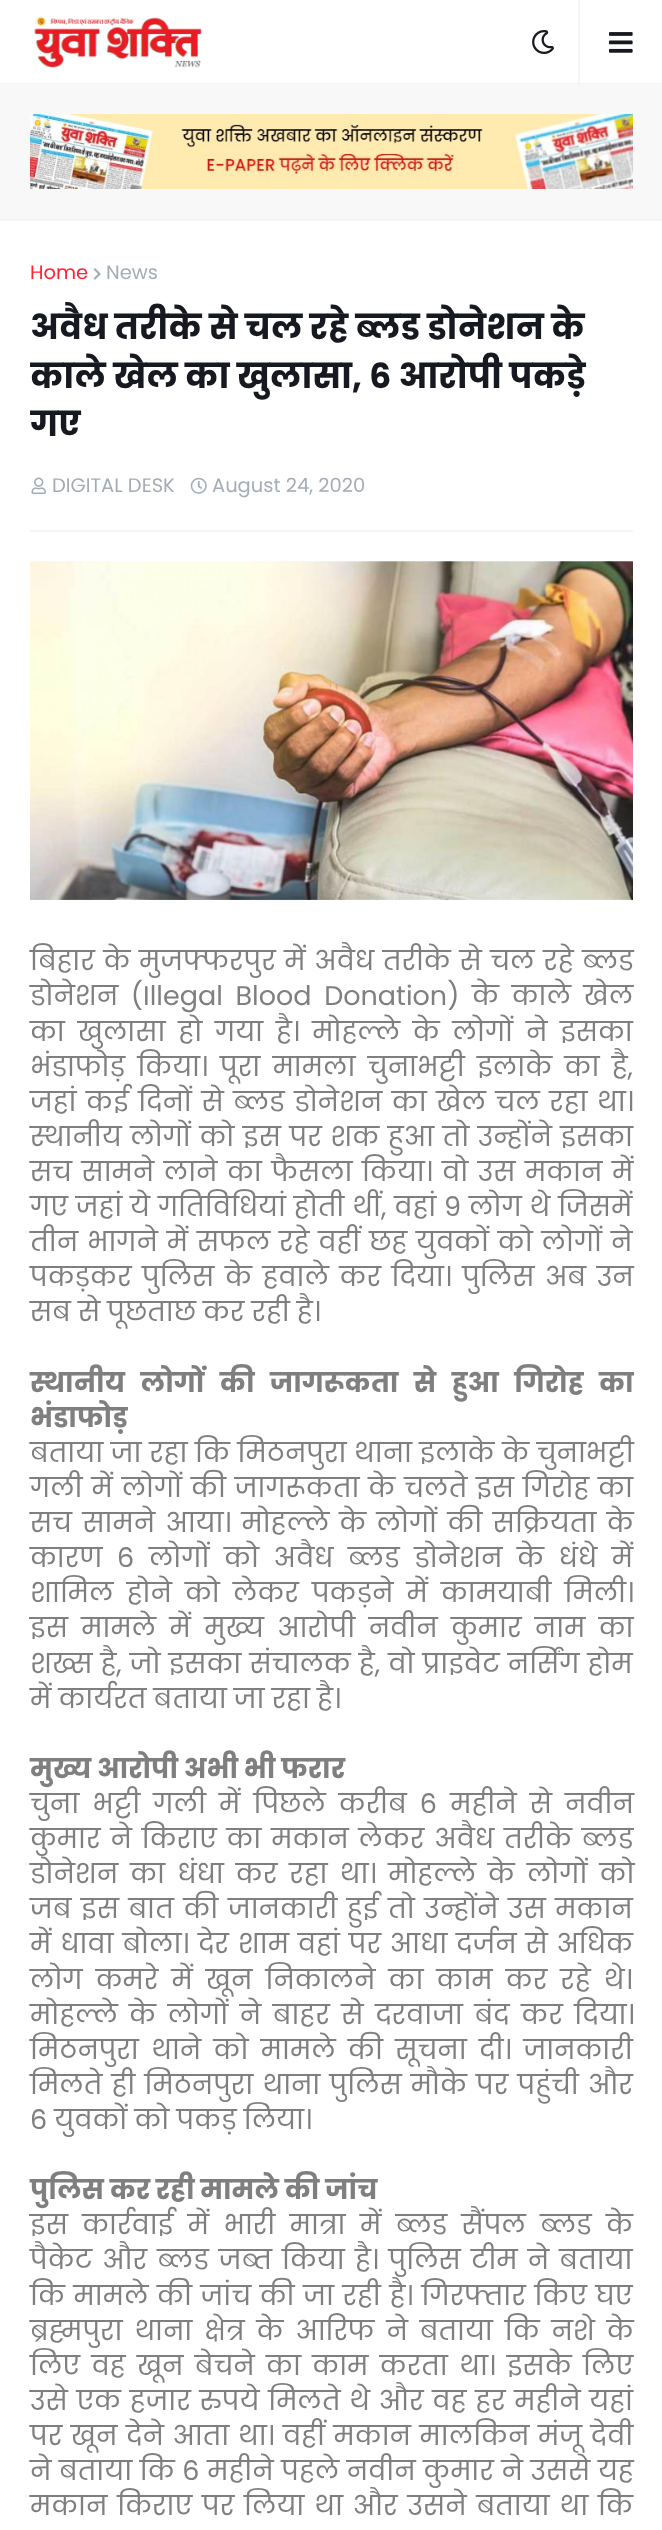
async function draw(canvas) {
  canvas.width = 662;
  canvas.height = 2530;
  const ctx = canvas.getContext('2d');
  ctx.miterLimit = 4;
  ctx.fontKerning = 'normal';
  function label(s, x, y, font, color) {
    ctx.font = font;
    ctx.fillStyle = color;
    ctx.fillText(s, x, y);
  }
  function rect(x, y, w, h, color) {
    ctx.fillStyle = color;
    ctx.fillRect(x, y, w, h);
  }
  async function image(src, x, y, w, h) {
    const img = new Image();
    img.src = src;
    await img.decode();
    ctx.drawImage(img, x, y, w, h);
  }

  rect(0, 0, 662, 2530, '#fff');
  rect(578, 0, 2, 84, '#f5f5f5');
  rect(0, 83, 662, 1, '#f5f5f5');
  rect(578, 83, 2, 1, '#ececec');
  await image('assets/img1.png', 34, 16, 168, 52);
  await image('assets/img2.png', 532, 30, 22, 24);
  await image('assets/img3.png', 609, 32, 24, 21);
  rect(0, 219, 662, 2, '#f5f5f5');
  rect(0, 84, 662, 135, '#f8f8f8');
  await image('assets/img4.png', 30, 114, 603, 75);
  rect(30, 530, 603, 2, '#f5f5f5');
  label('Home', 30, 279, '19.5px Poppins', '#ff2232');
  await image('assets/img5.png', 93, 268, 8, 12);
  label('News', 106, 279, '19.5px Poppins', '#a4acb6');
  label('अवैध तरीके से चल रहे ब्लड डोनेशन के', 30, 339, 'bold 34.5px Poppins', '#171921');
  ctx.save();
  ctx.beginPath();
  ctx.rect(30, 258, 603, 272);
  ctx.clip();
  label('काले खेल का खुलासा, 6 आरोपी पकड़े', 30, 388, 'bold 34.5px Poppins', '#171921');
  label('गए', 30, 436, 'bold 34.5px Poppins', '#171921');
  ctx.restore();
  await image('assets/img6.png', 31, 477, 15, 18);
  label('DIGITAL DESK', 52, 492, '19.5px Poppins', '#a4acb6');
  await image('assets/img7.png', 190, 477, 17, 17);
  label('August 24, 2020', 212, 492, '19.5px Poppins', '#a4acb6');
  await image('assets/img8.png', 30, 561, 603, 339);
  ctx.wordSpacing = '1.5px';
  label('बिहार के मुजफ्फरपुर में अवैध तरीके से चल रहे ब्लड', 30, 970, '27px Poppins', '#7f7f7f');
  ctx.wordSpacing = '5.5px';
  label('डोनेशन (Illegal Blood Donation) के काले खेल', 30, 1005, '27px Poppins', '#7f7f7f');
  ctx.wordSpacing = '5.75px';
  label('का खुलासा हो गया है। मोहल्ले के लोगों ने इसका', 30, 1041, '27px Poppins', '#7f7f7f');
  ctx.wordSpacing = '5.25px';
  label('भंडाफोड़ किया। पूरा मामला चुनाभट्टी इलाके का है,', 30, 1076, '27px Poppins', '#7f7f7f');
  ctx.wordSpacing = '2.4px';
  label('जहां कई दिनों से ब्लड डोनेशन का खेल चल रहा था।', 30, 1111, '27px Poppins', '#7f7f7f');
  ctx.wordSpacing = '1.5px';
  label('स्थानीय लोगों को इस पर शक हुआ तो उन्होंने इसका', 30, 1146, '27px Poppins', '#7f7f7f');
  ctx.wordSpacing = '2.4px';
  label('सच सामने लाने का फैसला किया। वो उस मकान में', 30, 1181, '27px Poppins', '#7f7f7f');
  ctx.wordSpacing = '0.75px';
  label('गए जहां ये गतिविधियां होती थीं, वहां 9 लोग थे जिसमें', 30, 1216, '27px Poppins', '#7f7f7f');
  ctx.wordSpacing = '1.75px';
  label('तीन भागने में सफल रहे वहीं छह युवकों को लोगों ने', 30, 1251, '27px Poppins', '#7f7f7f');
  ctx.wordSpacing = '3.5px';
  label('पकड़कर पुलिस के हवाले कर दिया। पुलिस अब उन', 30, 1286, '27px Poppins', '#7f7f7f');
  ctx.wordSpacing = '0px';
  label('सब से पूछताछ कर रही है।', 30, 1321, '27px Poppins', '#7f7f7f');
  ctx.wordSpacing = '9.75px';
  label('स्थानीय लोगों की जागरूकता से हुआ गिरोह का', 30, 1392, 'bold 27px Poppins', '#7f7f7f');
  ctx.wordSpacing = '0px';
  label('भंडाफोड़', 30, 1427, 'bold 27px Poppins', '#7f7f7f');
  ctx.wordSpacing = '0.5px';
  label('बताया जा रहा कि मिठनपुरा थाना इलाके के चुनाभट्टी', 30, 1462, '27px Poppins', '#7f7f7f');
  ctx.wordSpacing = '1.75px';
  label('गली में लोगों की जागरूकता के चलते इस गिरोह का', 30, 1497, '27px Poppins', '#7f7f7f');
  ctx.wordSpacing = '3.25px';
  label('सच सामने आया। मोहल्ले के लोगों की सक्रियता के', 30, 1532, '27px Poppins', '#7f7f7f');
  ctx.wordSpacing = '7.5px';
  label('कारण 6 लोगों को अवैध ब्लड डोनेशन के धंधे में', 30, 1567, '27px Poppins', '#7f7f7f');
  ctx.wordSpacing = '6px';
  label('शामिल होने को लेकर पकड़ने में कामयाबी मिली।', 30, 1602, '27px Poppins', '#7f7f7f');
  ctx.wordSpacing = '6.25px';
  label('इस मामले में मुख्य आरोपी नवीन कुमार नाम का', 30, 1637, '27px Poppins', '#7f7f7f');
  ctx.wordSpacing = '1px';
  label('शख्स है, जो इसका संचालक है, वो प्राइवेट नर्सिंग होम', 30, 1673, '27px Poppins', '#7f7f7f');
  ctx.wordSpacing = '0px';
  label('में कार्यरत बताया जा रहा है।', 30, 1708, '27px Poppins', '#7f7f7f');
  label('मुख्य आरोपी अभी भी फरार', 30, 1778, 'bold 27px Poppins', '#7f7f7f');
  ctx.wordSpacing = '6px';
  label('चुना भट्टी गली में पिछले करीब 6 महीने से नवीन', 30, 1813, '27px Poppins', '#7f7f7f');
  ctx.wordSpacing = '2.75px';
  label('कुमार ने किराए का मकान लेकर अवैध तरीके ब्लड', 30, 1848, '27px Poppins', '#7f7f7f');
  ctx.wordSpacing = '5px';
  label('डोनेशन का धंधा कर रहा था। मोहल्ले के लोगों को', 30, 1883, '27px Poppins', '#7f7f7f');
  ctx.wordSpacing = '2.5px';
  label('जब इस बात की जानकारी हुई तो उन्होंने उस मकान', 30, 1918, '27px Poppins', '#7f7f7f');
  ctx.wordSpacing = '1.75px';
  label('में धावा बोला। देर शाम वहां पर आधा दर्जन से अधिक', 30, 1953, '27px Poppins', '#7f7f7f');
  ctx.wordSpacing = '6px';
  label('लोग कमरे में खून निकालने का काम कर रहे थे।', 30, 1989, '27px Poppins', '#7f7f7f');
  ctx.wordSpacing = '4.5px';
  label('मोहल्ले के लोगों ने बाहर से दरवाजा बंद कर दिया।', 30, 2024, '27px Poppins', '#7f7f7f');
  ctx.wordSpacing = '5.25px';
  label('मिठनपुरा थाने को मामले की सूचना दी। जानकारी', 30, 2059, '27px Poppins', '#7f7f7f');
  ctx.wordSpacing = '2px';
  label('मिलते ही मिठनपुरा थाना पुलिस मौके पर पहुंची और', 30, 2094, '27px Poppins', '#7f7f7f');
  ctx.wordSpacing = '0px';
  label('6 युवकों को पकड़ लिया।', 30, 2129, '27px Poppins', '#7f7f7f');
  label('पुलिस कर रही मामले की जांच', 30, 2199, 'bold 27px Poppins', '#7f7f7f');
  ctx.wordSpacing = '7.25px';
  label('इस कार्रवाई में भारी मात्रा में ब्लड सैंपल ब्लड के', 30, 2234, '27px Poppins', '#7f7f7f');
  ctx.wordSpacing = '3px';
  label('पैकेट और ब्लड जब्त किया है। पुलिस टीम ने बताया', 30, 2269, '27px Poppins', '#7f7f7f');
  ctx.wordSpacing = '1.5px';
  label('कि मामले की जांच की जा रही है। गिरफ्तार किए घए', 30, 2305, '27px Poppins', '#7f7f7f');
  ctx.wordSpacing = '4.75px';
  label('ब्रह्मपुरा थाना क्षेत्र के आरिफ ने बताया कि नशे के', 30, 2340, '27px Poppins', '#7f7f7f');
  ctx.wordSpacing = '4.25px';
  label('लिए वह खून बेचने का काम करता था। इसके लिए', 30, 2375, '27px Poppins', '#7f7f7f');
  ctx.wordSpacing = '1.6px';
  label('उसे एक हजार रुपये मिलते थे और वह हर महीने यहां', 30, 2410, '27px Poppins', '#7f7f7f');
  ctx.wordSpacing = '1.5px';
  label('पर खून देने आता था। वहीं मकान मालकिन मंजू देवी', 30, 2445, '27px Poppins', '#7f7f7f');
  ctx.wordSpacing = '0.5px';
  label('ने बताया कि 6 महीने पहले नवीन कुमार ने उससे यह', 30, 2480, '27px Poppins', '#7f7f7f');
  ctx.wordSpacing = '2.75px';
  label('मकान किराए पर लिया था और उसने बताया था कि', 30, 2515, '27px Poppins', '#7f7f7f');
}

draw(document.querySelector('canvas'));
